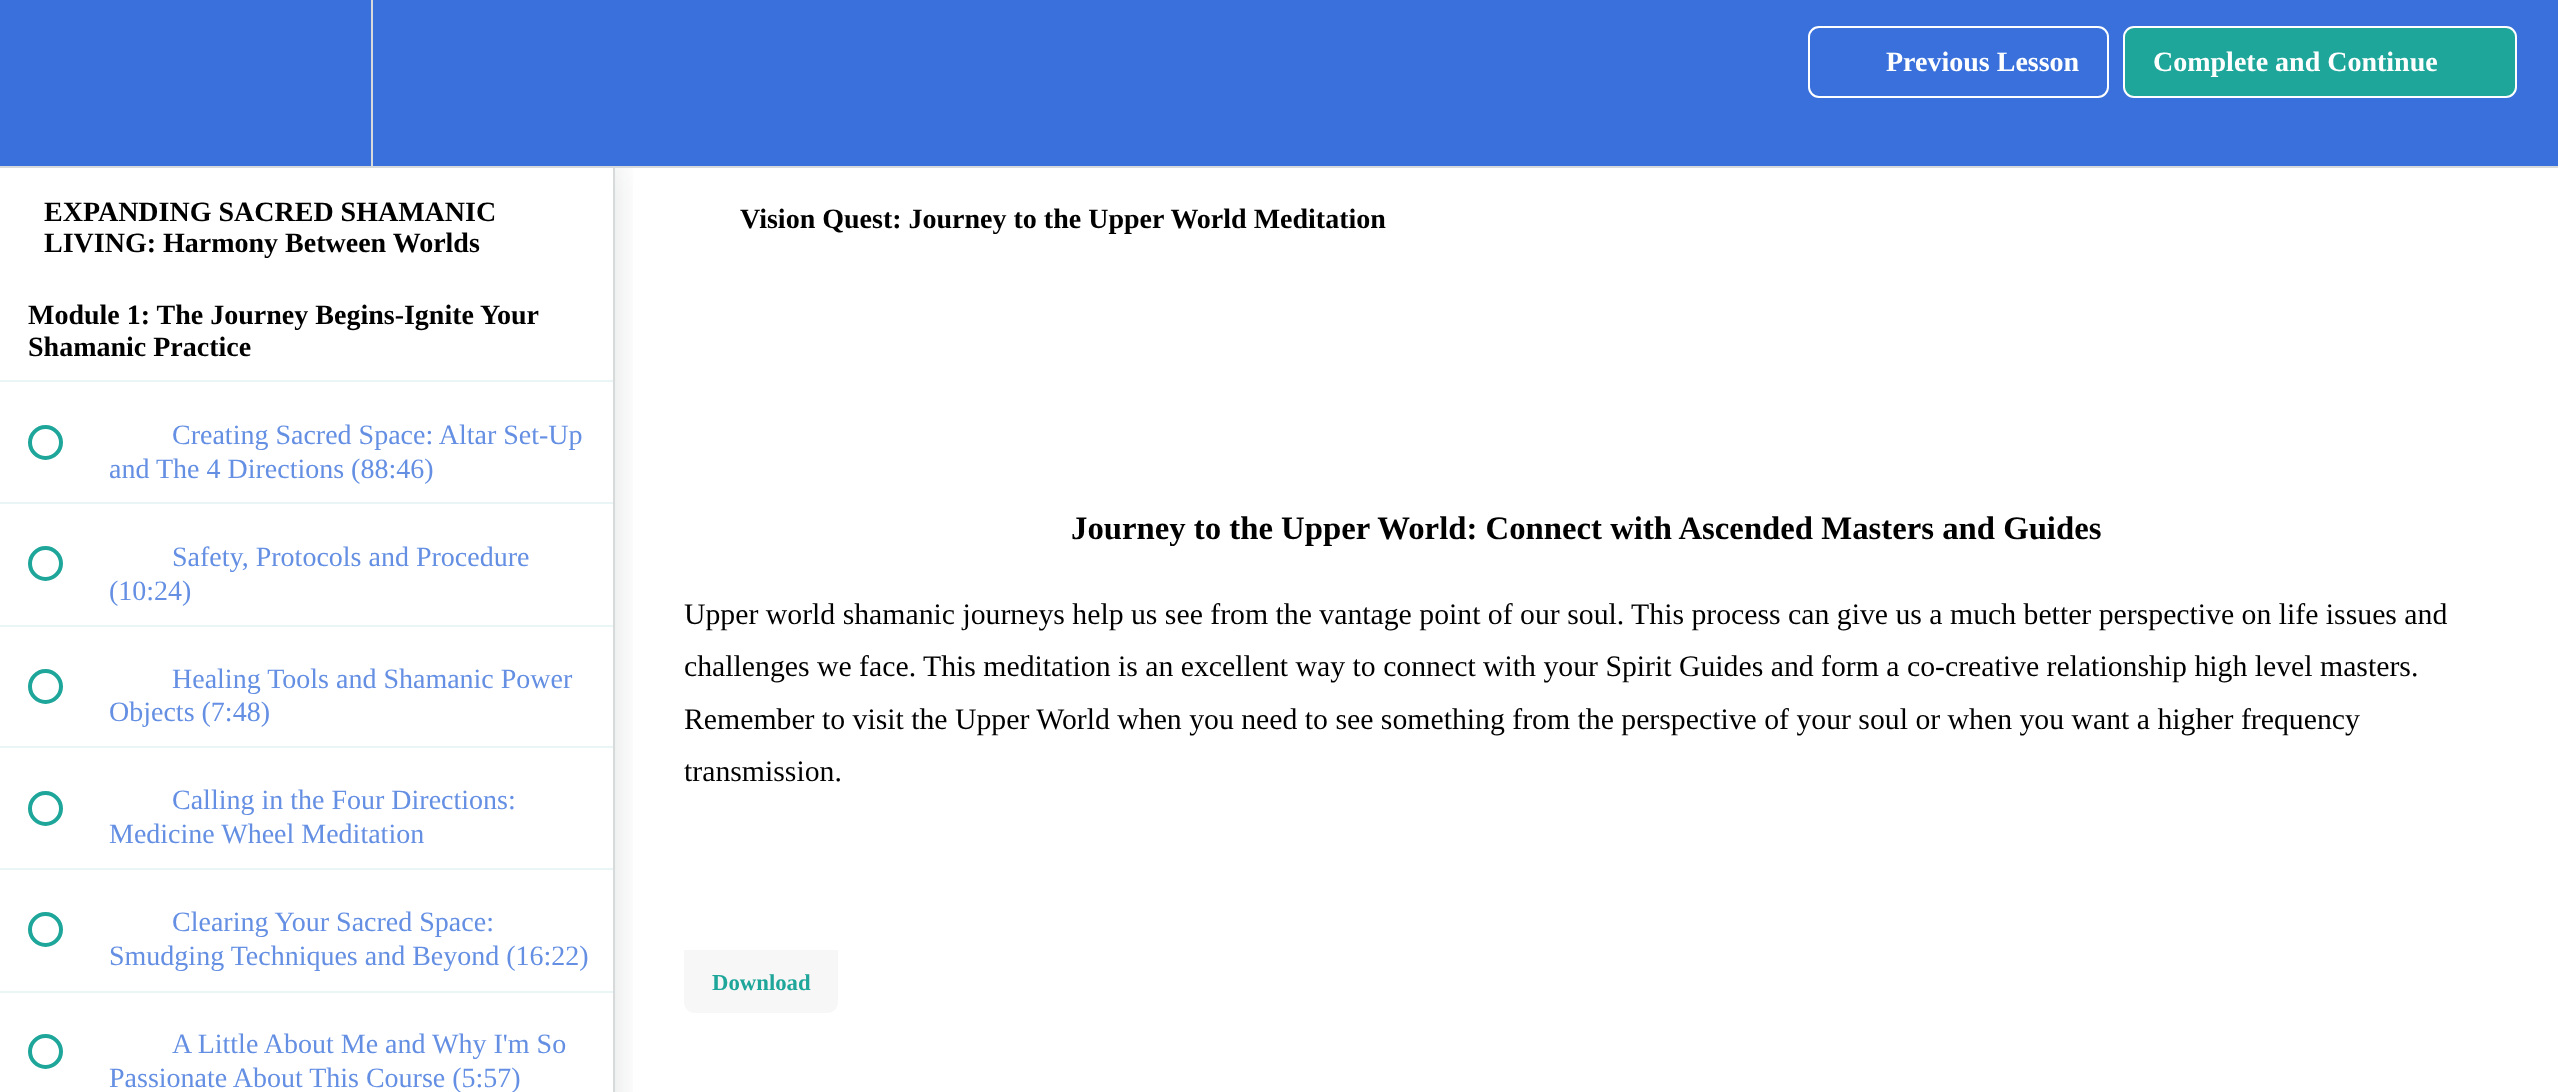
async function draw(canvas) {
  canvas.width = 2558;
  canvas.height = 1092;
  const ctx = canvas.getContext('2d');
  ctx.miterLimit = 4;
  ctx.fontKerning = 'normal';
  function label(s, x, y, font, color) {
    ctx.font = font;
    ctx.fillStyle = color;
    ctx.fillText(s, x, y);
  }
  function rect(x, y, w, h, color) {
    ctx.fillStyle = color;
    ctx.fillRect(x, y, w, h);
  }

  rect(0, 0, 2558, 1092, '#fff');
  ctx.save();
  ctx.beginPath();
  ctx.rect(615, 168, 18, 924);
  ctx.clip();
  ctx.fillStyle = '#20272d26';
  ctx.filter = 'blur(17.5px)';
  ctx.beginPath();
  ctx.rect(0, 163, 614, 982);
  ctx.fill();
  ctx.filter = 'none';
  ctx.restore();
  rect(0, 0, 2558, 166, '#3970db');
  rect(0, 166, 2558, 2, '#d7dadb');
  rect(371, 0, 2, 166, '#d7dadb');
  ctx.beginPath();
  ctx.roundRect(1809, 27, 299, 70, 10);
  ctx.strokeStyle = '#fff';
  ctx.lineWidth = 2;
  ctx.stroke();
  label('Previous Lesson', 1886, 71, 'bold 28px Liberation Serif', '#fff');
  ctx.fillStyle = '#1ea69a';
  ctx.beginPath();
  ctx.roundRect(2124, 27, 392, 70, 10);
  ctx.fill();
  ctx.stroke();
  label('Complete and Continue', 2153, 71, 'bold 28px Liberation Serif', '#fff');
  rect(613, 168, 2, 924, '#d7dadb');
  label('EXPANDING SACRED SHAMANIC', 44, 221, 'bold 28px Liberation Serif', '#000');
  label('LIVING: Harmony Between Worlds', 44, 252, 'bold 28px Liberation Serif', '#000');
  rect(0, 380, 613, 2, '#e9f6f5');
  label('Module 1: The Journey Begins-Ignite Your', 28, 324, 'bold 28px Liberation Serif', '#000');
  label('Shamanic Practice', 28, 356, 'bold 28px Liberation Serif', '#000');
  rect(0, 502, 613, 2, '#e9f6f5');
  ctx.beginPath();
  ctx.arc(45.5, 442.5, 15.5, 0, 2 * Math.PI);
  ctx.strokeStyle = '#1ea69a';
  ctx.lineWidth = 4;
  ctx.stroke();
  label('Creating Sacred Space: Altar Set-Up', 172, 444, '28px Liberation Serif', '#648fe3');
  label('and The 4 Directions (88:46)', 109, 478, '28px Liberation Serif', '#648fe3');
  rect(0, 625, 613, 2, '#e9f6f5');
  ctx.beginPath();
  ctx.arc(45.5, 563.5, 15.5, 0, 2 * Math.PI);
  ctx.stroke();
  label('Safety, Protocols and Procedure', 172, 566, '28px Liberation Serif', '#648fe3');
  label('(10:24)', 109, 600, '28px Liberation Serif', '#648fe3');
  rect(0, 746, 613, 2, '#e9f6f5');
  ctx.beginPath();
  ctx.arc(45.5, 686.5, 15.5, 0, 2 * Math.PI);
  ctx.stroke();
  label('Healing Tools and Shamanic Power', 172, 688, '28px Liberation Serif', '#648fe3');
  label('Objects (7:48)', 109, 721, '28px Liberation Serif', '#648fe3');
  rect(0, 868, 613, 2, '#e9f6f5');
  ctx.beginPath();
  ctx.arc(45.5, 808.5, 15.5, 0, 2 * Math.PI);
  ctx.stroke();
  label('Calling in the Four Directions:', 172, 809, '28px Liberation Serif', '#648fe3');
  label('Medicine Wheel Meditation', 109, 843, '28px Liberation Serif', '#648fe3');
  rect(0, 991, 613, 2, '#e9f6f5');
  ctx.beginPath();
  ctx.arc(45.5, 929.5, 15.5, 0, 2 * Math.PI);
  ctx.stroke();
  label('Clearing Your Sacred Space:', 172, 931, '28px Liberation Serif', '#648fe3');
  label('Smudging Techniques and Beyond (16:22)', 109, 965, '28px Liberation Serif', '#648fe3');
  ctx.beginPath();
  ctx.arc(45.5, 1051.5, 15.5, 0, 2 * Math.PI);
  ctx.stroke();
  label('A Little About Me and Why I\'m So', 172, 1053, '28px Liberation Serif', '#648fe3');
  label('Passionate About This Course (5:57)', 109, 1087, '28px Liberation Serif', '#648fe3');
  label('Vision Quest: Journey to the Upper World Meditation', 740, 228, 'bold 28px Liberation Serif', '#000');
  label('Journey to the Upper World: Connect with Ascended Masters and Guides', 1071, 539, 'bold 32.75px Liberation Serif', '#000');
  label('Upper world shamanic journeys help us see from the vantage point of our soul. This process can give us a much better perspective on life issues and', 684, 624, '29.75px Liberation Serif', '#000');
  label('challenges we face. This meditation is an excellent way to connect with your Spirit Guides and form a co-creative relationship high level masters.', 684, 676, '29.75px Liberation Serif', '#000');
  label('Remember to visit the Upper World when you need to see something from the perspective of your soul or when you want a higher frequency', 684, 729, '29.75px Liberation Serif', '#000');
  label('transmission.', 684, 781, '29.75px Liberation Serif', '#000');
  ctx.fillStyle = '#f7f7f7';
  ctx.beginPath();
  ctx.roundRect(684, 950, 154, 63, [0, 0, 11, 11]);
  ctx.fill();
  label('Download', 712, 990, 'bold 22.75px Liberation Serif', '#1ea69a');
}

draw(document.querySelector('canvas'));
